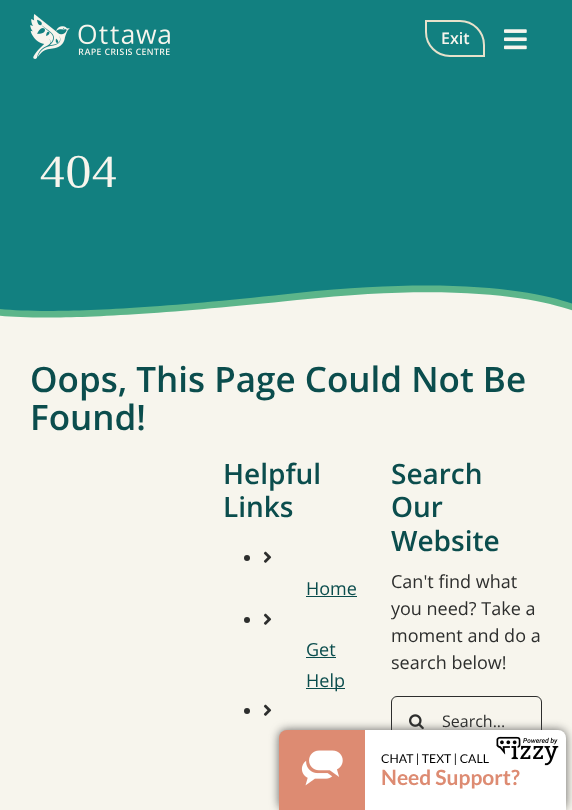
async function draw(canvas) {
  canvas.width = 572;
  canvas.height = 810;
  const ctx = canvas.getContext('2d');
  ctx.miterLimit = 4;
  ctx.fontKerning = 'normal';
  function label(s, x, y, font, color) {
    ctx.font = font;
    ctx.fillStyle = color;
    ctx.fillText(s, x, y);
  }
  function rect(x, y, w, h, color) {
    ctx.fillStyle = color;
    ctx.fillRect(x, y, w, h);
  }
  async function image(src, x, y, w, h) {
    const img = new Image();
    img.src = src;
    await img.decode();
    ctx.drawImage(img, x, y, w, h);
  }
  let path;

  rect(0, 0, 572, 810, '#f7f5ed');
  rect(0, 0, 572, 270, '#128080');
  await image('assets/img1.png', 30, 14, 140, 45);
  ctx.beginPath();
  ctx.roundRect(426, 21, 58, 35, [0, 24, 0, 24]);
  ctx.strokeStyle = '#e7e1cb';
  ctx.lineWidth = 2;
  ctx.stroke();
  label('Exit', 441, 44, '600 16px Open Sans', '#f7f5ed');
  await image('assets/img2.png', 504, 29, 23, 21);
  label('404', 40, 187, '46px Philosopher', '#f7f5ed');
  ctx.fillStyle = '#5cb58a';
  path = new Path2D('M-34 273H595V321C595 321 534 274 297 300C59 325 2 318-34 311C-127 293-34 273-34 273Z');
  ctx.fill(path);
  ctx.save();
  ctx.beginPath();
  ctx.rect(0, 270, 572, 45);
  ctx.clip();
  ctx.fillStyle = '#128080';
  path = new Path2D('M-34 267H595V314C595 314 534 268 297 293C59 319 2 311-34 304C-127 286-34 267-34 267Z');
  ctx.fill(path);
  ctx.restore();
  label('Oops, This Page Could Not Be', 30, 392, '600 35px Open Sans', '#0b4d4d');
  label('Found!', 30, 430, '600 35px Open Sans', '#0b4d4d');
  label('Helpful', 223, 484, '600 28px Open Sans', '#0b4d4d');
  label('Links', 223, 517, '600 28px Open Sans', '#0b4d4d');
  ctx.fillStyle = '#2d2e2d';
  ctx.beginPath();
  ctx.arc(247, 558, 3, 0, 2 * Math.PI);
  ctx.fill();
  await image('assets/img3.png', 263, 551, 9, 12);
  label('Home', 306, 595, '18px Open Sans', '#0b4d4d');
  rect(306, 596, 51, 1, '#0b4d4d');
  ctx.fillStyle = '#2d2e2d';
  ctx.beginPath();
  ctx.arc(247, 620, 3, 0, 2 * Math.PI);
  ctx.fill();
  await image('assets/img3.png', 263, 613, 9, 12);
  label('Get', 306, 656, '18px Open Sans', '#0b4d4d');
  rect(306, 657, 30, 1, '#0b4d4d');
  rect(306, 688, 39, 1, '#0b4d4d');
  label('Help', 306, 687, '18px Open Sans', '#0b4d4d');
  ctx.fillStyle = '#2d2e2d';
  ctx.beginPath();
  ctx.arc(247, 711, 3, 0, 2 * Math.PI);
  ctx.fill();
  await image('assets/img3.png', 263, 704, 9, 12);
  label('Search', 391, 484, '600 28px Open Sans', '#0b4d4d');
  label('Our', 391, 517, '600 28px Open Sans', '#0b4d4d');
  label('Website', 391, 551, '600 28px Open Sans', '#0b4d4d');
  label('Can\'t find what', 391, 588, '18px Open Sans', '#2d2e2d');
  label('you need? Take a', 391, 615, '18px Open Sans', '#2d2e2d');
  label('moment and do a', 391, 642, '18px Open Sans', '#2d2e2d');
  label('search below!', 391, 669, '18px Open Sans', '#2d2e2d');
  ctx.beginPath();
  ctx.roundRect(391.5, 696.5, 150, 49, 5.5);
  ctx.strokeStyle = '#2d2e2d';
  ctx.lineWidth = 1;
  ctx.stroke();
  await image('assets/img4.png', 409, 714, 15, 16);
  label('Search...', 442, 727, '16px Open Sans', '#2d2e2d');
  ctx.fillStyle = '#4a4a4ad9';
  ctx.filter = 'blur(5px)';
  ctx.beginPath();
  ctx.roundRect(279, 730, 287, 80, 8);
  ctx.fill();
  ctx.filter = 'none';
  ctx.fillStyle = '#dd8b72';
  ctx.beginPath();
  ctx.roundRect(279, 730, 86, 80, [8, 0, 0, 0]);
  ctx.fill();
  await image('assets/img5.png', 301, 750, 42, 36);
  ctx.fillStyle = '#fff';
  ctx.beginPath();
  ctx.roundRect(365, 730, 201, 80, [0, 8, 0, 0]);
  ctx.fill();
  label('CHAT | TEXT | CALL', 381, 763, '12.25px Lato', '#000');
  label('Need Support?', 381, 785, 'bold 21px Lato', '#dd8b72');
  await image('assets/img6.png', 496, 736, 63, 30);
}

draw(document.querySelector('canvas'));
